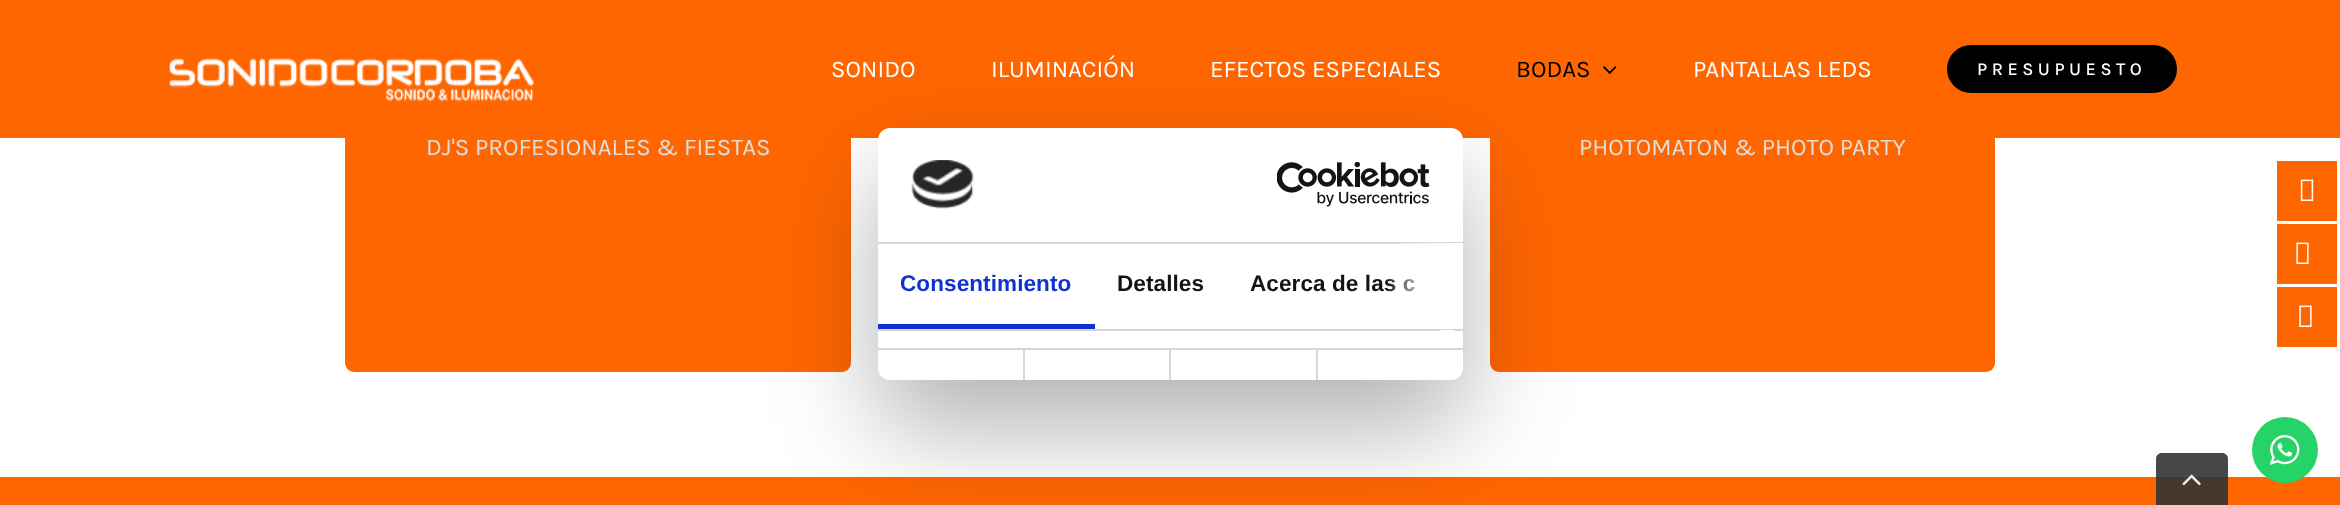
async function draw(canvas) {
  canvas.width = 2340;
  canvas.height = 505;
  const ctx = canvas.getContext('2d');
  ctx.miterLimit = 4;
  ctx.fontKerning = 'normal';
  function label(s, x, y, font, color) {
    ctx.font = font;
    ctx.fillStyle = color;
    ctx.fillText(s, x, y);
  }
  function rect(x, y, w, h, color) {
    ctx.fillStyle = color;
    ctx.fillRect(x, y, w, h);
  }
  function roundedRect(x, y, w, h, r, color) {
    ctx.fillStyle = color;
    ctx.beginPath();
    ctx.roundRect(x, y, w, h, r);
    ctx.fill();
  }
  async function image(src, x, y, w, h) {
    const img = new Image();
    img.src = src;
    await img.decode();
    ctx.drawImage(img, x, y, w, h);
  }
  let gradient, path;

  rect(0, 0, 2340, 505, '#fff');
  roundedRect(345, -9, 506, 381, 9, '#f60');
  roundedRect(1490, -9, 505, 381, 9, '#f60');
  rect(0, 0, 2340, 138, '#f60');
  await image('assets/img1.png', 169, 58, 365, 44);
  label('SONIDO', 831, 77, '24px Karla', '#fff');
  label('ILUMINACIÓN', 991, 77, '24px Karla', '#fff');
  label('EFECTOS ESPECIALES', 1210, 77, '24px Karla', '#fff');
  label('BODAS', 1516, 77, '24px Karla', '#000');
  await image('assets/img2.png', 1603, 66, 14, 8);
  label('PANTALLAS LEDS', 1693, 77, '24px Karla', '#fff');
  roundedRect(1947, 45, 230, 48, 24, '#000');
  ctx.letterSpacing = '4.5px';
  label('PRESUPUESTO', 1977, 75, '500 18px Karla', '#fff');
  ctx.letterSpacing = '0px';
  label('DJ\'S PROFESIONALES & FIESTAS', 426, 155, '24px Karla', '#e0dede');
  label('PHOTOMATON & PHOTO PARTY', 1579, 155, '24px Karla', '#e0dede');
  rect(0, 477, 2340, 28, '#f60');
  ctx.fillStyle = '#0000004d';
  ctx.filter = 'blur(51px)';
  ctx.beginPath();
  ctx.roundRect(878, 176, 585, 252, 12);
  ctx.fill();
  ctx.filter = 'none';
  roundedRect(878, 128, 585, 252, 12, '#fff');
  rect(878, 242, 585, 2, '#d6d6d6');
  await image('assets/img3.png', 911, 160, 63, 49);
  await image('assets/img4.png', 1277, 162, 153, 45);
  rect(878, 329, 585, 2, '#d6d6d6');
  rect(878, 324, 217, 5, '#1032cf');
  ctx.letterSpacing = '0.1px';
  label('Consentimiento', 900, 291, 'bold 22.5px Liberation Sans', '#1032cf');
  label('Detalles', 1117, 291, 'bold 22.5px Liberation Sans', '#141414');
  label('Acerca de las c', 1250, 291, 'bold 22.5px Liberation Sans', '#141414');
  gradient = ctx.createLinearGradient(1463, 285, 1385, 285);
  gradient.addColorStop(0, '#fff');
  gradient.addColorStop(0.5, '#ffffffcc');
  gradient.addColorStop(1, '#ffffff00');
  ctx.fillStyle = gradient;
  ctx.fillRect(1386, 243, 77, 49);
  rect(878, 348, 585, 2, '#d6d6d6');
  rect(1440, 330, 14, 1, '#fff');
  rect(1023, 350, 2, 30, '#d6d6d6');
  rect(1169, 350, 2, 30, '#d6d6d6');
  rect(1316, 350, 2, 30, '#d6d6d6');
  rect(2277, 161, 60, 60, '#f60');
  await image('assets/img5.png', 2300, 179, 14, 22);
  rect(2277, 224, 60, 60, '#f60');
  await image('assets/img6.png', 2296, 242, 13, 22);
  rect(2277, 287, 60, 60, '#f60');
  await image('assets/img6.png', 2299, 305, 13, 22);
  ctx.fillStyle = '#25d366';
  ctx.beginPath();
  ctx.arc(2285, 450, 33, 0, 2 * Math.PI);
  ctx.fill();
  await image('assets/img7.png', 2270, 435, 30, 30);
  ctx.fillStyle = '#333333e6';
  path = new Path2D('M2162 453H2222C2225.5 453 2228 455.5 2228 459V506H2156V459C2156 455.5 2158.5 453 2162 453Z');
  ctx.fill(path);
  await image('assets/img8.png', 2182, 474, 19, 12);
}

draw(document.querySelector('canvas'));
